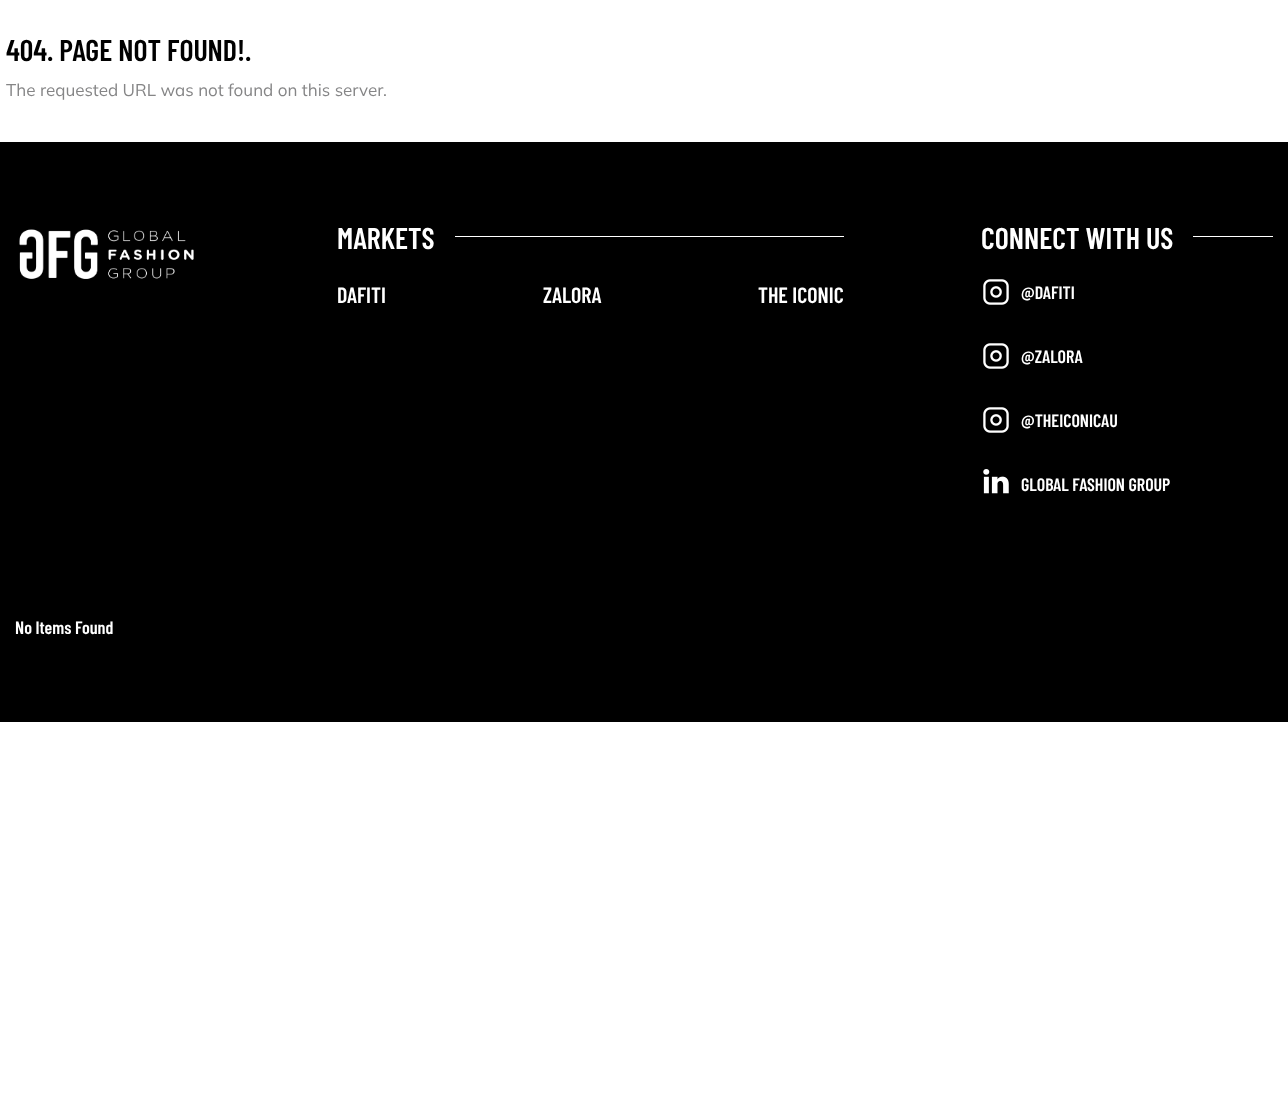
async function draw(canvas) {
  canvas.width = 1288;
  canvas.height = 1119;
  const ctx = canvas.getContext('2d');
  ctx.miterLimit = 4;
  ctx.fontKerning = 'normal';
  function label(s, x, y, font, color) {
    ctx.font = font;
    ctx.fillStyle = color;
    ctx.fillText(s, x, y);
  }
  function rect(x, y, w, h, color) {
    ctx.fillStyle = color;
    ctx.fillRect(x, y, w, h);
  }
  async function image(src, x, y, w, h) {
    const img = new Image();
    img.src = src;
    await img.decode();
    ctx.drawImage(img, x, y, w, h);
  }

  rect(0, 0, 1288, 1119, '#fff');
  label('404. PAGE NOT FOUND!.', 6, 61, '600 30px Barlow Condensed', '#000');
  label('The requested URL was not found on this server.', 6, 96, '200 17px Mulish', '#858586');
  rect(0, 142, 1288, 580, '#000');
  await image('assets/img1.png', 19, 229, 175, 50);
  label('MARKETS', 337, 249, '600 30px Barlow Condensed', '#fff');
  rect(455, 236, 389, 1, '#fff');
  label('DAFITI', 337, 303, '600 22px Barlow Condensed', '#fff');
  label('ZALORA', 543, 303, '600 22px Barlow Condensed', '#fff');
  label('THE ICONIC', 758, 303, '600 22px Barlow Condensed', '#fff');
  label('CONNECT WITH US', 981, 249, '600 30px Barlow Condensed', '#fff');
  rect(1193, 236, 80, 1, '#fff');
  await image('assets/img2.png', 983, 279, 26, 26);
  label('@DAFITI', 1021, 299, '600 18px Barlow Condensed', '#fff');
  await image('assets/img2.png', 983, 343, 26, 26);
  label('@ZALORA', 1021, 363, '600 18px Barlow Condensed', '#fff');
  await image('assets/img2.png', 983, 407, 26, 26);
  label('@THEICONICAU', 1021, 427, '600 18px Barlow Condensed', '#fff');
  await image('assets/img3.png', 983, 469, 26, 25);
  label('GLOBAL FASHION GROUP', 1021, 491, '600 18px Barlow Condensed', '#fff');
  label('No Items Found', 15, 634, '600 18px Barlow Condensed', '#fff');
}

draw(document.querySelector('canvas'));
